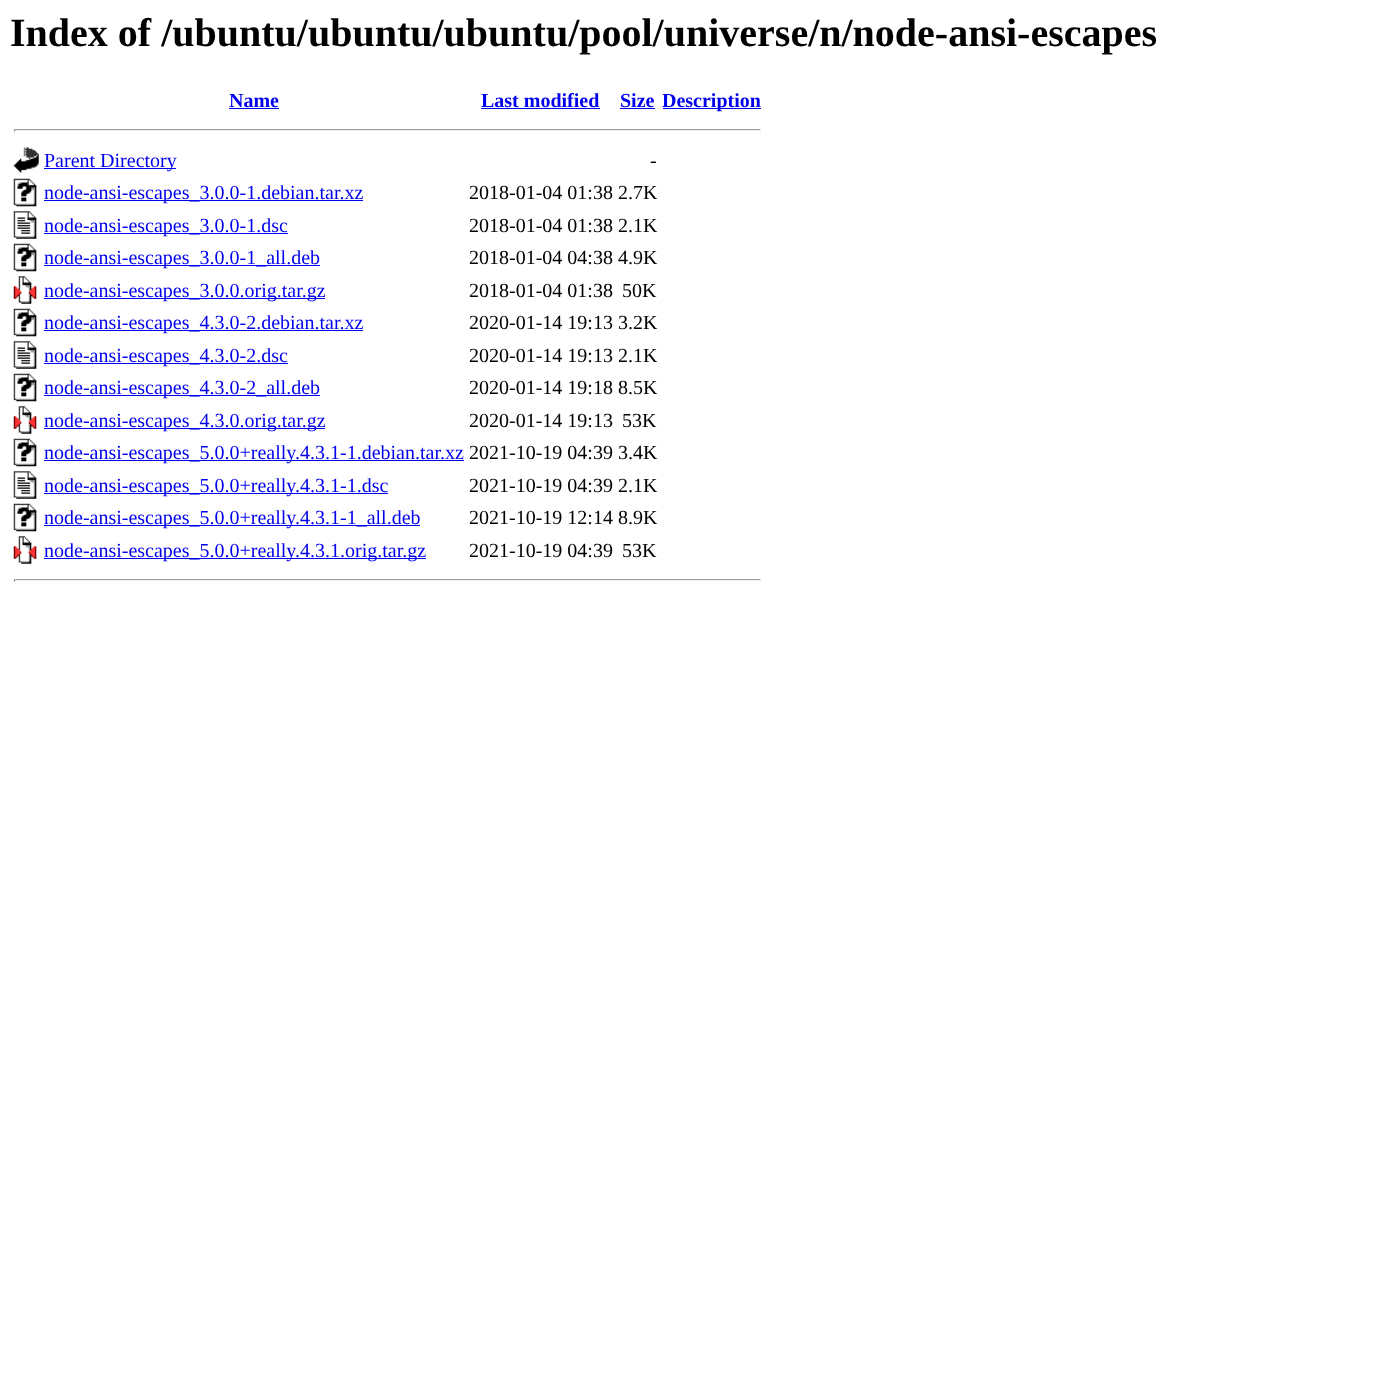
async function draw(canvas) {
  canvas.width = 1396;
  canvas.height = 1398;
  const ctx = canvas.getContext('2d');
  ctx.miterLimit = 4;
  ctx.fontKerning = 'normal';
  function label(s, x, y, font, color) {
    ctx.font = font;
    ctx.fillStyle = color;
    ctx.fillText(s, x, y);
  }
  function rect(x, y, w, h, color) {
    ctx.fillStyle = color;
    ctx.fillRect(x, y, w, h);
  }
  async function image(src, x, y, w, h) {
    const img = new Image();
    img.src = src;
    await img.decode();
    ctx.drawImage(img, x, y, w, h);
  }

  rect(0, 0, 1396, 1398, '#fff');
  label('Index of /ubuntu/ubuntu/ubuntu/pool/universe/n/node-ansi-escapes', 10, 46, 'bold 40px Liberation Serif', '#000');
  label('Name', 229, 107, 'bold 20px Liberation Serif', '#00e');
  rect(229, 108, 50, 1, '#00e');
  label('Last modified', 481, 107, 'bold 20px Liberation Serif', '#00e');
  rect(481, 108, 119, 1, '#00e');
  label('Size', 620, 107, 'bold 20px Liberation Serif', '#00e');
  rect(620, 108, 35, 1, '#00e');
  rect(663, 108, 98, 1, '#00e');
  label('Description', 662, 107, 'bold 20px Liberation Serif', '#00e');
  rect(14, 129, 747, 1, '#9f9f9f');
  rect(760, 129, 1, 3, '#eee');
  rect(14, 130, 747, 1, '#eee');
  rect(14, 129, 1, 3, '#9f9f9f');
  await image('assets/img1.png', 13, 147, 26, 26);
  rect(44, 168, 132, 1, '#00e');
  label('Parent Directory', 44, 167, '20px Liberation Serif', '#00e');
  label('-', 650, 167, '20px Liberation Serif', '#000');
  await image('assets/img2.png', 13, 178, 24, 29);
  rect(44, 200, 319, 1, '#00e');
  label('node-ansi-escapes_3.0.0-1.debian.tar.xz', 44, 199, '20px Liberation Serif', '#00e');
  label('2018-01-04 01:38 2.7K', 469, 199, '20px Liberation Serif', '#000');
  await image('assets/img3.png', 13, 211, 24, 28);
  rect(44, 233, 244, 1, '#00e');
  label('node-ansi-escapes_3.0.0-1.dsc', 44, 232, '20px Liberation Serif', '#00e');
  label('2018-01-04 01:38 2.1K', 469, 232, '20px Liberation Serif', '#000');
  await image('assets/img2.png', 13, 243, 24, 29);
  rect(44, 265, 276, 1, '#00e');
  label('node-ansi-escapes_3.0.0-1_all.deb', 44, 264, '20px Liberation Serif', '#00e');
  label('2018-01-04 04:38 4.9K', 469, 264, '20px Liberation Serif', '#000');
  await image('assets/img4.png', 13, 276, 24, 28);
  rect(44, 298, 281, 1, '#00e');
  label('node-ansi-escapes_3.0.0.orig.tar.gz', 44, 297, '20px Liberation Serif', '#00e');
  label('2018-01-04 01:38', 469, 297, '20px Liberation Serif', '#000');
  label('50K', 622, 297, '20px Liberation Serif', '#000');
  await image('assets/img2.png', 13, 308, 24, 29);
  rect(44, 330, 319, 1, '#00e');
  label('node-ansi-escapes_4.3.0-2.debian.tar.xz', 44, 329, '20px Liberation Serif', '#00e');
  label('2020-01-14 19:13 3.2K', 469, 329, '20px Liberation Serif', '#000');
  await image('assets/img3.png', 13, 341, 24, 28);
  rect(44, 363, 244, 1, '#00e');
  label('node-ansi-escapes_4.3.0-2.dsc', 44, 362, '20px Liberation Serif', '#00e');
  label('2020-01-14 19:13 2.1K', 469, 362, '20px Liberation Serif', '#000');
  await image('assets/img2.png', 13, 373, 24, 29);
  rect(44, 395, 276, 1, '#00e');
  label('node-ansi-escapes_4.3.0-2_all.deb', 44, 394, '20px Liberation Serif', '#00e');
  label('2020-01-14 19:18 8.5K', 469, 394, '20px Liberation Serif', '#000');
  await image('assets/img5.png', 13, 406, 24, 28);
  rect(44, 428, 281, 1, '#00e');
  label('node-ansi-escapes_4.3.0.orig.tar.gz', 44, 427, '20px Liberation Serif', '#00e');
  label('2020-01-14 19:13', 469, 427, '20px Liberation Serif', '#000');
  label('53K', 622, 427, '20px Liberation Serif', '#000');
  await image('assets/img2.png', 13, 438, 24, 29);
  rect(44, 460, 420, 1, '#00e');
  label('node-ansi-escapes_5.0.0+really.4.3.1-1.debian.tar.xz', 44, 459, '20px Liberation Serif', '#00e');
  label('2021-10-19 04:39 3.4K', 469, 459, '20px Liberation Serif', '#000');
  await image('assets/img3.png', 13, 471, 24, 28);
  rect(44, 493, 344, 1, '#00e');
  label('node-ansi-escapes_5.0.0+really.4.3.1-1.dsc', 44, 492, '20px Liberation Serif', '#00e');
  label('2021-10-19 04:39 2.1K', 469, 492, '20px Liberation Serif', '#000');
  await image('assets/img2.png', 13, 503, 24, 29);
  rect(44, 525, 376, 1, '#00e');
  label('node-ansi-escapes_5.0.0+really.4.3.1-1_all.deb', 44, 524, '20px Liberation Serif', '#00e');
  label('2021-10-19 12:14 8.9K', 469, 524, '20px Liberation Serif', '#000');
  await image('assets/img5.png', 13, 536, 24, 28);
  rect(44, 558, 382, 1, '#00e');
  label('node-ansi-escapes_5.0.0+really.4.3.1.orig.tar.gz', 44, 557, '20px Liberation Serif', '#00e');
  label('2021-10-19 04:39', 469, 557, '20px Liberation Serif', '#000');
  label('53K', 622, 557, '20px Liberation Serif', '#000');
  rect(14, 579, 747, 1, '#9f9f9f');
  rect(760, 579, 1, 3, '#eee');
  rect(14, 580, 747, 1, '#eee');
  rect(14, 579, 1, 3, '#9f9f9f');
}

draw(document.querySelector('canvas'));
